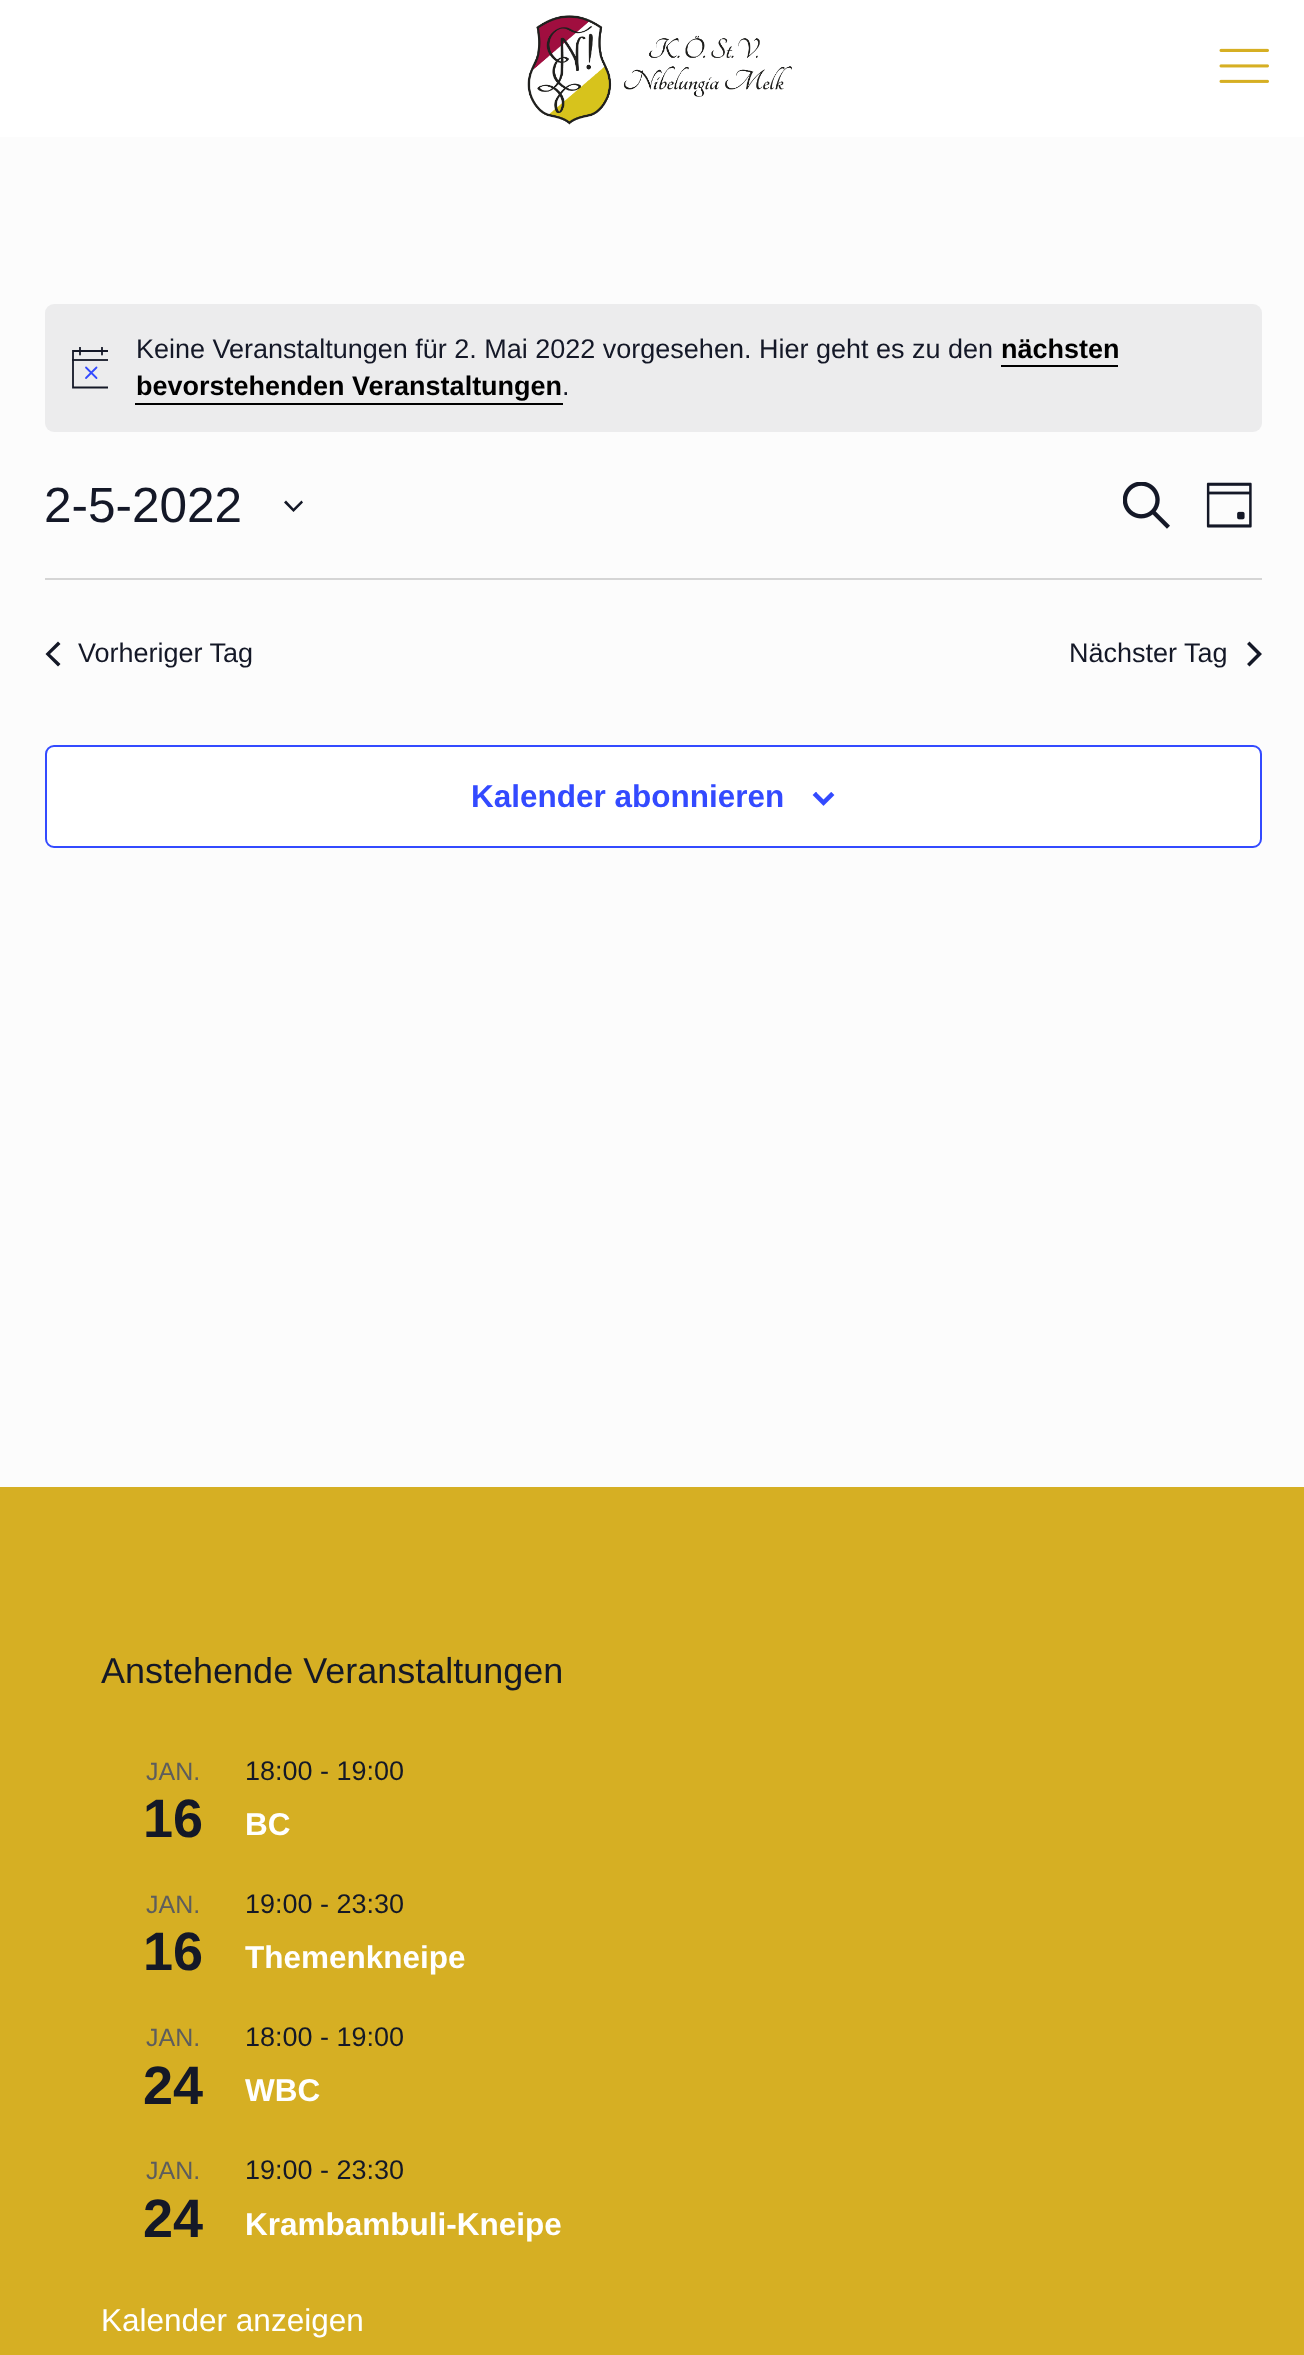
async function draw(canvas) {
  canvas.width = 1304;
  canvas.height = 2355;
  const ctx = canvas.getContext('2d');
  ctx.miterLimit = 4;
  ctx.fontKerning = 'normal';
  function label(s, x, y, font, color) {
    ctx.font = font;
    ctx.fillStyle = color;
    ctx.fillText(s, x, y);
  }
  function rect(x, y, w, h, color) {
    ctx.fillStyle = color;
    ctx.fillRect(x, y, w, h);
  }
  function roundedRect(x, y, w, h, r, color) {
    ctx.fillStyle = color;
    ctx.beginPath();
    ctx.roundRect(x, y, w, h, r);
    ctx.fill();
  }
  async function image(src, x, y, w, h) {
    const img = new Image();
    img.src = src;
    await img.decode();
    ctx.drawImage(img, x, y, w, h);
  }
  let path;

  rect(0, 0, 1304, 2355, '#fcfcfc');
  rect(0, 0, 1304, 137, '#fff');
  await image('assets/img1.png', 527, 15, 265, 110);
  await image('assets/img2.png', 1219, 48, 50, 35);
  roundedRect(45, 304, 1217, 128, 9, '#ececed');
  ctx.save();
  ctx.beginPath();
  ctx.rect(72, 347, 36, 42);
  ctx.clip();
  path = new Path2D('M73 351H109.5V387.5H73Z');
  ctx.strokeStyle = '#141827';
  ctx.lineWidth = 1.8;
  ctx.stroke(path);
  ctx.restore();
  path = new Path2D('M86 367.5L96.5 378M96.5 367.5L86 378');
  ctx.strokeStyle = '#334aff';
  ctx.lineWidth = 1.8;
  ctx.lineCap = 'round';
  ctx.stroke(path);
  ctx.save();
  ctx.beginPath();
  ctx.rect(72, 347, 36, 42);
  ctx.clip();
  path = new Path2D('M80 347.5V354.5M102 347.5V354.5');
  ctx.strokeStyle = '#141827';
  ctx.stroke(path);
  ctx.restore();
  rect(72, 359, 36, 2, '#141827e6');
  label('Keine Veranstaltungen für 2. Mai 2022 vorgesehen. Hier geht es zu den', 136, 358, '27px Liberation Sans', '#141827');
  label('nächsten', 1001, 358, 'bold 27px Liberation Sans', '#000');
  rect(1001, 365, 117, 2, '#000');
  label('bevorstehenden Veranstaltungen', 136, 395, 'bold 27px Liberation Sans', '#000');
  rect(135, 403, 428, 2, '#000');
  label('.', 562, 395, '27px Liberation Sans', '#141827');
  label('2-5-2022', 44, 522, '49.5px Liberation Sans', '#141827');
  path = new Path2D('M286 500.5L293.5 508.5L301.5 500.5L303 502.5L293.5 512L284 502.5Z');
  ctx.fill(path, 'evenodd');
  await image('assets/img3.png', 1123, 482, 47, 47);
  await image('assets/img4.png', 1206, 482, 46, 46);
  rect(45, 578, 1217, 2, '#d5d5d5');
  ctx.fillStyle = '#141827';
  path = new Path2D('M60.5 664L58 666.5L45.5 654L58 641.5L60.5 644L50 654Z');
  ctx.fill(path);
  label('Vorheriger Tag', 78, 662, '27px Liberation Sans', '#141827');
  label('Nächster Tag', 1069, 662, '27px Liberation Sans', '#141827');
  path = new Path2D('M1247 644L1249.5 641.5L1262 654L1249.5 666.5L1247 664L1257 654Z');
  ctx.fill(path);
  ctx.fillStyle = '#fff';
  ctx.beginPath();
  ctx.roundRect(46, 746, 1215, 101, 8);
  ctx.fill();
  ctx.lineWidth = 2;
  ctx.stroke();
  label('Kalender abonnieren', 471, 807, 'bold 31.5px Liberation Sans', '#334aff');
  await image('assets/img5.png', 812, 792, 23, 14);
  rect(0, 1487, 1304, 868, '#d6af23');
  label('Anstehende Veranstaltungen', 101, 1683, '36px Liberation Sans', '#141827');
  label('JAN.', 146, 1780, '25px Liberation Sans', '#5d5d5d');
  label('16', 143, 1837, 'bold 54px Liberation Sans', '#141827');
  label('18:00 - 19:00', 245, 1780, '27px Liberation Sans', '#141827');
  label('BC', 245, 1835, 'bold 31.5px Liberation Sans', '#fff');
  label('JAN.', 146, 1913, '25px Liberation Sans', '#5d5d5d');
  label('16', 143, 1970, 'bold 54px Liberation Sans', '#141827');
  label('19:00 - 23:30', 245, 1913, '27px Liberation Sans', '#141827');
  label('Themenkneipe', 245, 1968, 'bold 31.5px Liberation Sans', '#fff');
  label('JAN.', 146, 2046, '25px Liberation Sans', '#5d5d5d');
  label('24', 143, 2104, 'bold 54px Liberation Sans', '#141827');
  label('18:00 - 19:00', 245, 2046, '27px Liberation Sans', '#141827');
  label('WBC', 245, 2101, 'bold 31.5px Liberation Sans', '#fff');
  label('JAN.', 146, 2179, '25px Liberation Sans', '#5d5d5d');
  label('24', 143, 2237, 'bold 54px Liberation Sans', '#141827');
  label('19:00 - 23:30', 245, 2179, '27px Liberation Sans', '#141827');
  label('Krambambuli-Kneipe', 245, 2235, 'bold 31.5px Liberation Sans', '#fff');
  label('Kalender anzeigen', 101, 2331, '31.5px Liberation Sans', '#fff');
}

draw(document.querySelector('canvas'));
